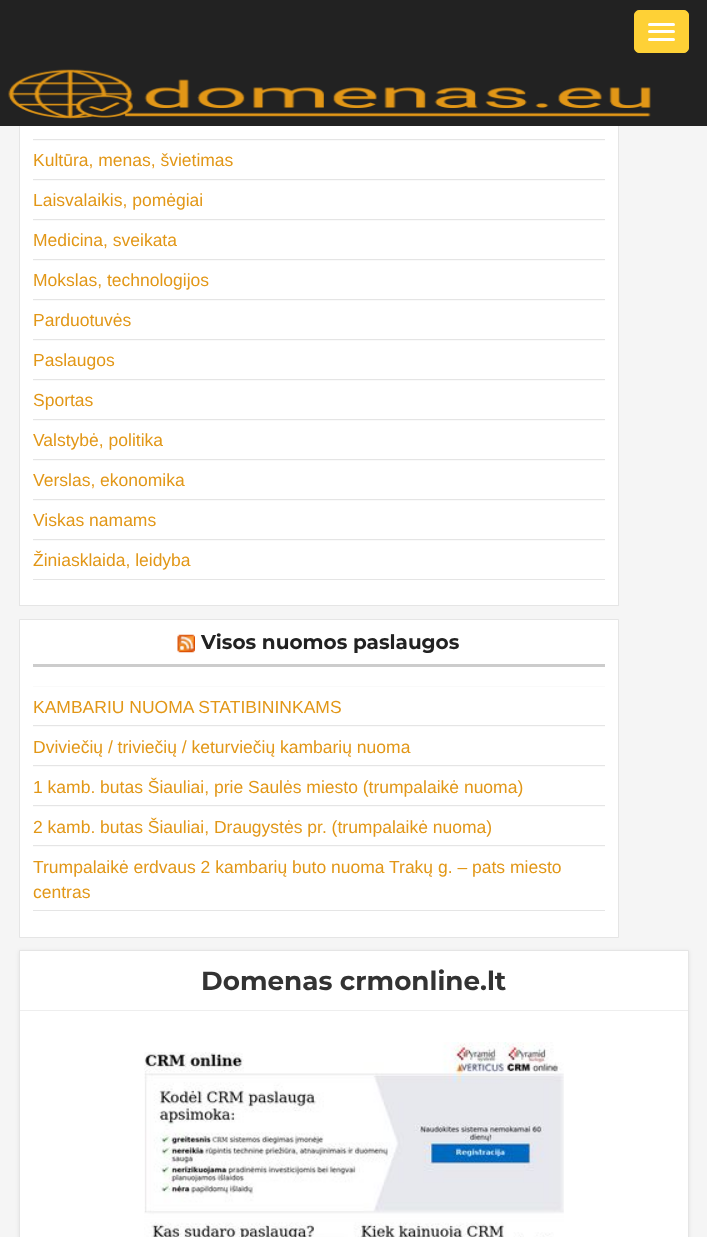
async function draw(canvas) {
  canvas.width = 707;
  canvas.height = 1237;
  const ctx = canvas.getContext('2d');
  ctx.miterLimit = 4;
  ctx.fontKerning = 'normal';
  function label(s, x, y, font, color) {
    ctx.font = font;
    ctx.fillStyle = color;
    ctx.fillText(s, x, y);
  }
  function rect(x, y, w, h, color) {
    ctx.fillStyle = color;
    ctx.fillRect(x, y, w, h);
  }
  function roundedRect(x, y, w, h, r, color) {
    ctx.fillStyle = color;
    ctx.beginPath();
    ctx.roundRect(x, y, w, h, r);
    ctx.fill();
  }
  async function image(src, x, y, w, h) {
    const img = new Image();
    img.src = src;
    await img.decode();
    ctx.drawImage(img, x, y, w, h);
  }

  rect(0, 0, 707, 1237, '#f5f5f5');
  rect(20, 126, 598, 479, '#fff');
  ctx.strokeStyle = '#e5e5e5';
  ctx.strokeRect(19.5, -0.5, 599, 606);
  rect(0, 0, 707, 126, '#222');
  ctx.fillStyle = '#fed136';
  ctx.beginPath();
  ctx.roundRect(634.5, 10.5, 54, 42, 4.5);
  ctx.fill();
  ctx.strokeStyle = '#fed136';
  ctx.stroke();
  roundedRect(648, 23, 27, 3, 1.5, '#fff');
  roundedRect(648, 30, 27, 3, 1.5, '#fff');
  roundedRect(648, 38, 27, 3, 1.5, '#fff');
  await image('assets/img1.png', 8, 69, 643, 50);
  rect(33, 139, 572, 1, '#e5e5e5');
  rect(33, 140, 572, 1, '#fafafa');
  rect(33, 179, 572, 1, '#e5e5e5');
  label('Kultūra, menas, švietimas', 33, 166, '17.5px Liberation Sans', '#e29717');
  rect(33, 180, 572, 1, '#fafafa');
  rect(33, 219, 572, 1, '#e5e5e5');
  label('Laisvalaikis, pomėgiai', 33, 206, '17.5px Liberation Sans', '#e29717');
  rect(33, 220, 572, 1, '#fafafa');
  rect(33, 259, 572, 1, '#e5e5e5');
  label('Medicina, sveikata', 33, 246, '17.5px Liberation Sans', '#e29717');
  rect(33, 260, 572, 1, '#fafafa');
  rect(33, 299, 572, 1, '#e5e5e5');
  label('Mokslas, technologijos', 33, 286, '17.5px Liberation Sans', '#e29717');
  rect(33, 300, 572, 1, '#fafafa');
  rect(33, 339, 572, 1, '#e5e5e5');
  label('Parduotuvės', 33, 326, '17.5px Liberation Sans', '#e29717');
  rect(33, 340, 572, 1, '#fafafa');
  rect(33, 379, 572, 1, '#e5e5e5');
  label('Paslaugos', 33, 366, '17.5px Liberation Sans', '#e29717');
  rect(33, 380, 572, 1, '#fafafa');
  rect(33, 419, 572, 1, '#e5e5e5');
  label('Sportas', 33, 406, '17.5px Liberation Sans', '#e29717');
  rect(33, 420, 572, 1, '#fafafa');
  rect(33, 459, 572, 1, '#e5e5e5');
  label('Valstybė, politika', 33, 446, '17.5px Liberation Sans', '#e29717');
  rect(33, 460, 572, 1, '#fafafa');
  rect(33, 499, 572, 1, '#e5e5e5');
  label('Verslas, ekonomika', 33, 486, '17.5px Liberation Sans', '#e29717');
  rect(33, 500, 572, 1, '#fafafa');
  rect(33, 539, 572, 1, '#e5e5e5');
  label('Viskas namams', 33, 526, '17.5px Liberation Sans', '#e29717');
  rect(33, 540, 572, 1, '#fafafa');
  rect(33, 579, 572, 1, '#e5e5e5');
  label('Žiniasklaida, leidyba', 33, 566, '17.5px Liberation Sans', '#e29717');
  ctx.fillStyle = '#fff';
  ctx.beginPath();
  ctx.rect(19.5, 619.5, 599, 318);
  ctx.fill();
  ctx.strokeStyle = '#e5e5e5';
  ctx.stroke();
  rect(33, 664, 572, 3, '#ccc');
  await image('assets/img2.png', 177, 634, 18, 19);
  label('Visos nuomos paslaugos', 201, 649, 'bold 20px Montserrat', '#222');
  rect(33, 686, 572, 1, '#fafafa');
  rect(33, 725, 572, 1, '#e5e5e5');
  label('KAMBARIU NUOMA STATIBININKAMS', 33, 713, '17.5px Liberation Sans', '#e29717');
  rect(33, 726, 572, 1, '#fafafa');
  rect(33, 765, 572, 1, '#e5e5e5');
  label('Dviviečių / triviečių / keturviečių kambarių nuoma', 33, 753, '17.5px Liberation Sans', '#e29717');
  rect(33, 766, 572, 1, '#fafafa');
  rect(33, 805, 572, 1, '#e5e5e5');
  label('1 kamb. butas Šiauliai, prie Saulės miesto (trumpalaikė nuoma)', 33, 793, '17.5px Liberation Sans', '#e29717');
  rect(33, 806, 572, 1, '#fafafa');
  rect(33, 845, 572, 1, '#e5e5e5');
  label('2 kamb. butas Šiauliai, Draugystės pr. (trumpalaikė nuoma)', 33, 833, '17.5px Liberation Sans', '#e29717');
  rect(33, 846, 572, 1, '#fafafa');
  rect(33, 910, 572, 1, '#e5e5e5');
  label('Trumpalaikė erdvaus 2 kambarių buto nuoma Trakų g. – pats miesto', 33, 873, '17.5px Liberation Sans', '#e29717');
  label('centras', 33, 898, '17.5px Liberation Sans', '#e29717');
  ctx.fillStyle = '#00000014';
  ctx.filter = 'blur(2px)';
  ctx.beginPath();
  ctx.rect(19, 951, 670, 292);
  ctx.fill();
  ctx.filter = 'none';
  ctx.fillStyle = '#fff';
  ctx.beginPath();
  ctx.rect(19.5, 950.5, 669, 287);
  ctx.fill();
  ctx.stroke();
  rect(20, 1010, 668, 1, '#eee');
  label('Domenas crmonline.lt', 201, 990, 'bold 26.25px Montserrat', '#333');
  await image('assets/img3.png', 144, 1042, 420, 195);
}

draw(document.querySelector('canvas'));
